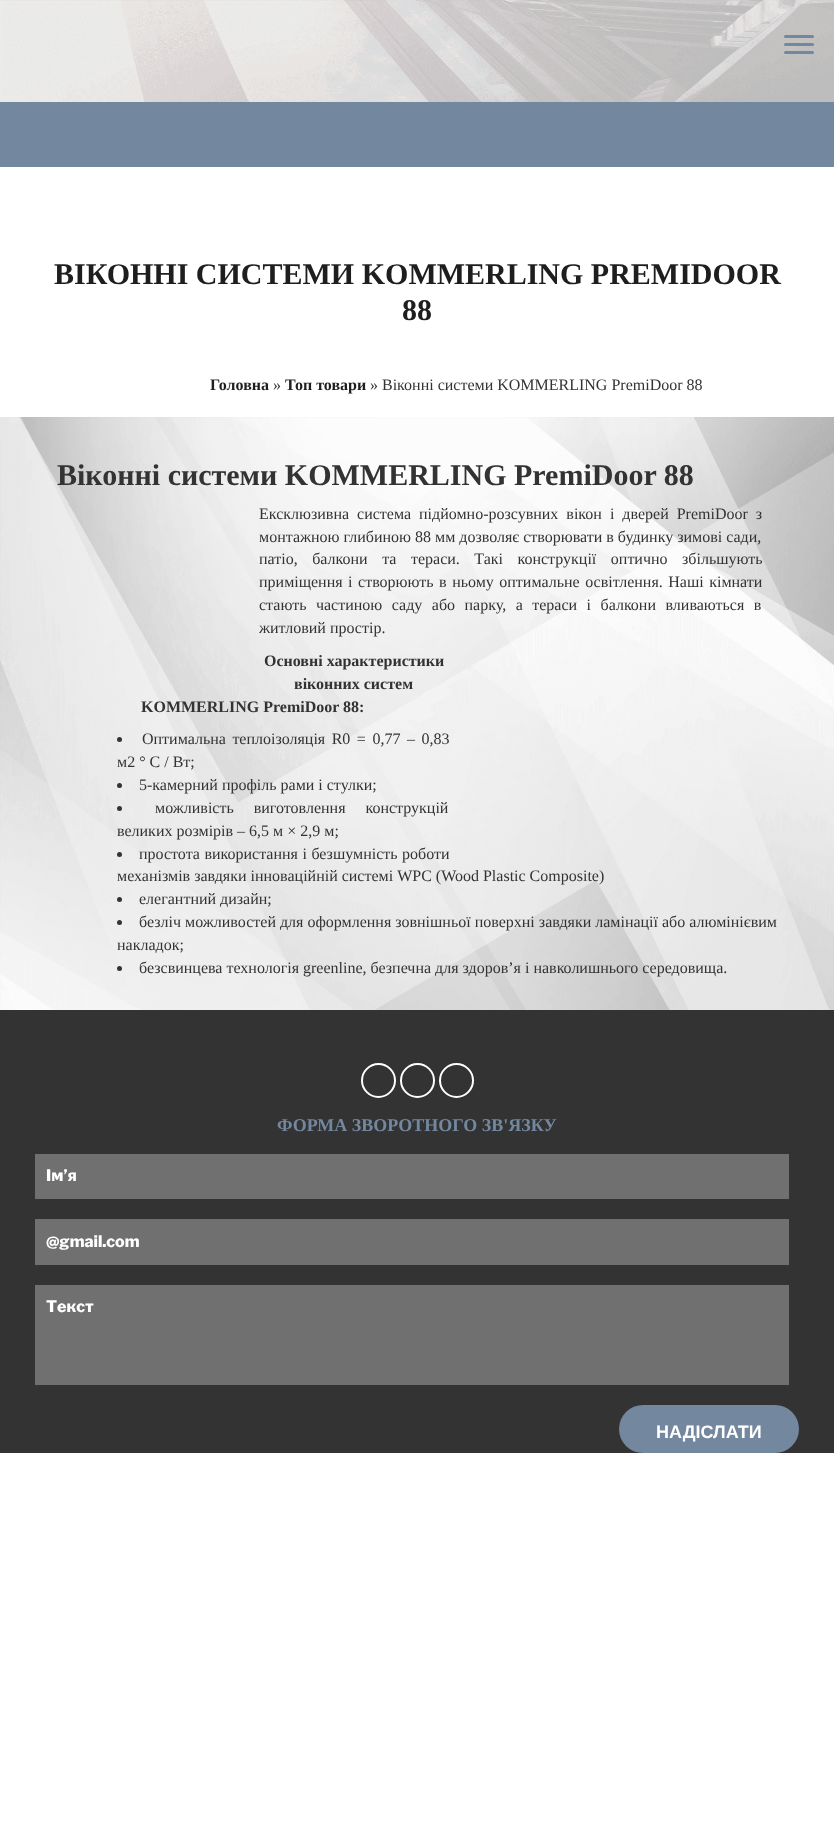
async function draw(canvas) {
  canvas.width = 834;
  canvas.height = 1842;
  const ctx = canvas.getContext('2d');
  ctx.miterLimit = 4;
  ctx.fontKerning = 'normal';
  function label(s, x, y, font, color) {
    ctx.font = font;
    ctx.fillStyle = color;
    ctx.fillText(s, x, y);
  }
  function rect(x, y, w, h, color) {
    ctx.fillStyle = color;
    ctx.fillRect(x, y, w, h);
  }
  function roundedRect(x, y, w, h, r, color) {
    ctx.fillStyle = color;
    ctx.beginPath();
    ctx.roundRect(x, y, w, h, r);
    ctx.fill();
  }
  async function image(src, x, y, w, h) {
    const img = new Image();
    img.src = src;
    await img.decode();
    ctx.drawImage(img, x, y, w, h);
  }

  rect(0, 0, 834, 1842, '#fff');
  await image('assets/img1.png', 0, 0, 834, 102);
  roundedRect(784, 35, 30, 3, 1.5, '#73879f');
  roundedRect(784, 43, 30, 3, 1.5, '#73879f');
  roundedRect(784, 51, 30, 3, 1.5, '#73879f');
  rect(0, 102, 834, 65, '#73879f');
  label('ВІКОННІ СИСТЕМИ KOMMERLING PREMIDOOR', 54, 284, 'bold 30px Liberation Serif', '#1e1e1e');
  label('88', 402, 320, 'bold 30px Liberation Serif', '#1e1e1e');
  label('Головна', 210, 390, 'bold 16px Liberation Serif', '#1e1e1e');
  label('»', 273, 390, '16px Liberation Serif', '#333');
  label('Топ товари', 285, 390, 'bold 16px Liberation Serif', '#1e1e1e');
  label('» Віконні системи KOMMERLING PremiDoor 88', 370, 390, '16px Liberation Serif', '#333');
  await image('assets/img2.png', 0, 417, 834, 593);
  label('Віконні системи KOMMERLING PremiDoor 88', 57, 485, 'bold 30px Liberation Serif', '#333');
  ctx.wordSpacing = '4px';
  label('Ексклюзивна система підйомно-розсувних вікон і дверей PremiDoor з', 259, 519, '16px Liberation Serif', '#333');
  ctx.wordSpacing = '0px';
  label('монтажною глибиною 88 мм дозволяє створювати в будинку зимові сади,', 259, 542, '16px Liberation Serif', '#333');
  ctx.wordSpacing = '10.5px';
  label('патіо, балкони та тераси. Такі конструкції оптично збільшують', 259, 564, '16px Liberation Serif', '#333');
  ctx.wordSpacing = '1.5px';
  label('приміщення і створюють в ньому оптимальне освітлення. Наші кімнати', 259, 587, '16px Liberation Serif', '#333');
  ctx.wordSpacing = '5.5px';
  label('стають частиною саду або парку, а тераси і балкони вливаються в', 259, 610, '16px Liberation Serif', '#333');
  ctx.wordSpacing = '0px';
  label('житловий простір.', 259, 633, '16px Liberation Serif', '#333');
  label('Основні характеристики', 264, 666, 'bold 16px Liberation Serif', '#333');
  label('віконних систем', 294, 689, 'bold 16px Liberation Serif', '#333');
  label('KOMMERLING PremiDoor 88:', 141, 712, 'bold 16px Liberation Serif', '#333');
  ctx.beginPath();
  ctx.arc(119.5, 739.5, 2.5, 0, 2 * Math.PI);
  ctx.fill();
  ctx.wordSpacing = '2.5px';
  label('Оптимальна теплоізоляція R0 = 0,77 – 0,83', 142, 744, '16px Liberation Serif', '#333');
  ctx.wordSpacing = '0px';
  label('м2 ° С / Вт;', 117, 767, '16px Liberation Serif', '#333');
  ctx.beginPath();
  ctx.arc(119.5, 785.5, 2.5, 0, 2 * Math.PI);
  ctx.fill();
  label('5-камерний профіль рами і стулки;', 139, 790, '16px Liberation Serif', '#333');
  ctx.beginPath();
  ctx.arc(119.5, 808.5, 2.5, 0, 2 * Math.PI);
  ctx.fill();
  ctx.wordSpacing = '16px';
  label('можливість виготовлення конструкцій', 155, 813, '16px Liberation Serif', '#333');
  ctx.wordSpacing = '0px';
  label('великих розмірів – 6,5 м × 2,9 м;', 117, 836, '16px Liberation Serif', '#333');
  ctx.beginPath();
  ctx.arc(119.5, 854.5, 2.5, 0, 2 * Math.PI);
  ctx.fill();
  ctx.wordSpacing = '0.5px';
  label('простота використання і безшумність роботи', 139, 859, '16px Liberation Serif', '#333');
  ctx.wordSpacing = '0px';
  label('механізмів завдяки інноваційній системі WPC (Wood Plastic Composite)', 117, 881, '16px Liberation Serif', '#333');
  ctx.beginPath();
  ctx.arc(119.5, 899.5, 2.5, 0, 2 * Math.PI);
  ctx.fill();
  label('елегантний дизайн;', 139, 904, '16px Liberation Serif', '#333');
  ctx.beginPath();
  ctx.arc(119.5, 922.5, 2.5, 0, 2 * Math.PI);
  ctx.fill();
  label('безліч можливостей для оформлення зовнішньої поверхні завдяки ламінації або алюмінієвим', 139, 927, '16px Liberation Serif', '#333');
  label('накладок;', 117, 950, '16px Liberation Serif', '#333');
  ctx.beginPath();
  ctx.arc(119.5, 968.5, 2.5, 0, 2 * Math.PI);
  ctx.fill();
  label('безсвинцева технологія greenline, безпечна для здоров’я і навколишнього середовища.', 139, 973, '16px Liberation Serif', '#333');
  rect(0, 1010, 834, 443, '#333');
  ctx.beginPath();
  ctx.arc(378.5, 1080.5, 16.5, 0, 2 * Math.PI);
  ctx.strokeStyle = '#fff';
  ctx.lineWidth = 2;
  ctx.stroke();
  ctx.beginPath();
  ctx.arc(417.5, 1080.5, 16.5, 0, 2 * Math.PI);
  ctx.stroke();
  ctx.beginPath();
  ctx.arc(456.5, 1080.5, 16.5, 0, 2 * Math.PI);
  ctx.stroke();
  label('ФОРМА ЗВОРОТНОГО ЗВ\'ЯЗКУ', 277, 1131, 'bold 18px Liberation Serif', '#73879f');
  rect(35, 1154, 754, 45, '#707070');
  label('Ім’я', 46, 1181, '800 16px Libre Franklin', '#fff');
  rect(35, 1219, 754, 46, '#707070');
  label('@gmail.com', 46, 1247, '800 16px Libre Franklin', '#fff');
  rect(35, 1285, 754, 100, '#707070');
  label('Текст', 46, 1312, '800 16px Libre Franklin', '#fff');
  roundedRect(619, 1405, 180, 48, 24, '#73879f');
  label('НАДІСЛАТИ', 656, 1438, 'bold 18px Liberation Sans', '#fff');
}

draw(document.querySelector('canvas'));
